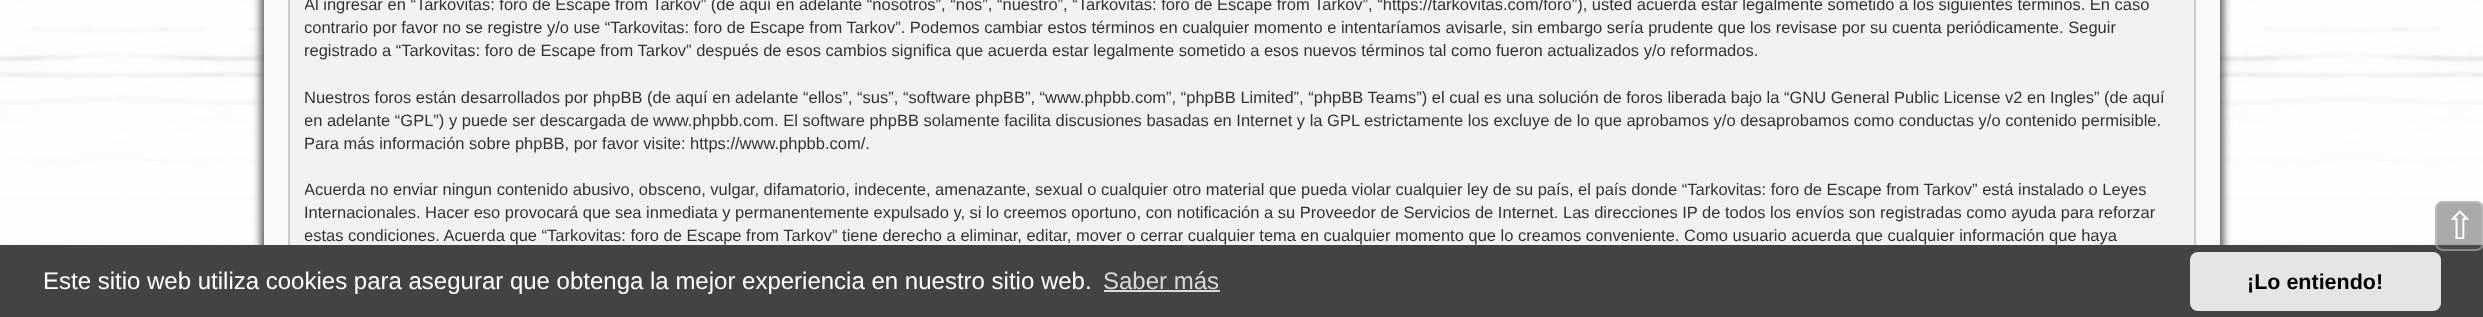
async function draw(canvas) {
  canvas.width = 2483;
  canvas.height = 317;
  const ctx = canvas.getContext('2d');
  ctx.miterLimit = 4;
  ctx.fontKerning = 'normal';
  function label(s, x, y, font, color) {
    ctx.font = font;
    ctx.fillStyle = color;
    ctx.fillText(s, x, y);
  }
  function rect(x, y, w, h, color) {
    ctx.fillStyle = color;
    ctx.fillRect(x, y, w, h);
  }
  function roundedRect(x, y, w, h, r, color) {
    ctx.fillStyle = color;
    ctx.beginPath();
    ctx.roundRect(x, y, w, h, r);
    ctx.fill();
  }
  async function image(src, x, y, w, h) {
    const img = new Image();
    img.src = src;
    await img.decode();
    ctx.drawImage(img, x, y, w, h);
  }

  rect(0, 0, 2483, 317, '#fff');
  await image('assets/img1.png', 0, 0, 2483, 245);
  ctx.fillStyle = '#020202b3';
  ctx.filter = 'blur(4.5px)';
  ctx.beginPath();
  ctx.rect(261, -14, 1962, 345);
  ctx.fill();
  ctx.filter = 'none';
  rect(264, 0, 1956, 245, '#fafafa');
  rect(290, 0, 1904, 245, '#f2f2f2');
  ctx.strokeStyle = '#ccc';
  ctx.lineWidth = 2;
  ctx.strokeRect(289, -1, 1906, 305);
  ctx.save();
  ctx.beginPath();
  ctx.rect(305, 0, 1875, 296);
  ctx.clip();
  label('Al ingresar en “Tarkovitas: foro de Escape from Tarkov” (de aquí en adelante “nosotros”, “nos”, “nuestro”, “Tarkovitas: foro de Escape from Tarkov”, “https://tarkovitas.com/foro”), usted acuerda estar legalmente sometido a los siguientes términos. En caso', 304, 10, '16.5px Liberation Sans', '#333');
  label('contrario por favor no se registre y/o use “Tarkovitas: foro de Escape from Tarkov”. Podemos cambiar estos términos en cualquier momento e intentaríamos avisarle, sin embargo sería prudente que los revisase por su cuenta periódicamente. Seguir', 304, 33, '16.5px Liberation Sans', '#333');
  label('registrado a “Tarkovitas: foro de Escape from Tarkov” después de esos cambios significa que acuerda estar legalmente sometido a esos nuevos términos tal como fueron actualizados y/o reformados.', 304, 56, '16.5px Liberation Sans', '#333');
  ctx.restore();
  label('Nuestros foros están desarrollados por phpBB (de aquí en adelante “ellos”, “sus”, “software phpBB”, “www.phpbb.com”, “phpBB Limited”, “phpBB Teams”) el cual es una solución de foros liberada bajo la “GNU General Public License v2 en Ingles” (de aquí', 304, 103, '16.5px Liberation Sans', '#333');
  ctx.save();
  ctx.beginPath();
  ctx.rect(305, 0, 1875, 296);
  ctx.clip();
  label('en adelante “GPL”) y puede ser descargada de', 304, 126, '16.5px Liberation Sans', '#333');
  ctx.restore();
  label('www.phpbb.com. El software phpBB solamente facilita discusiones basadas en Internet y la GPL estrictamente los excluye de lo que aprobamos y/o desaprobamos como conductas y/o contenido permisible.', 653, 126, '16.5px Liberation Sans', '#333');
  label('Para más información sobre phpBB, por favor visite: https://www.phpbb.com/.', 304, 149, '16.5px Liberation Sans', '#333');
  ctx.save();
  ctx.beginPath();
  ctx.rect(305, 0, 1875, 296);
  ctx.clip();
  label('Acuerda no enviar ningun contenido abusivo, obsceno, vulgar, difamatorio, indecente, amenazante, sexual o cualquier otro material que pueda violar cualquier ley de su país, el país donde “Tarkovitas: foro de Escape from Tarkov” está instalado o Leyes', 304, 195, '16.5px Liberation Sans', '#333');
  ctx.restore();
  label('Internacionales. Hacer eso provocará que sea inmediata y permanentemente expulsado y, si lo creemos oportuno, con notificación a su Proveedor de Servicios de Internet. Las direcciones IP de todos los envíos son registradas como ayuda para reforzar', 304, 218, '16.5px Liberation Sans', '#333');
  ctx.save();
  ctx.beginPath();
  ctx.rect(305, 0, 1875, 296);
  ctx.clip();
  label('estas condiciones. Acuerda que “Tarkovitas: foro de Escape from Tarkov” tiene derecho a eliminar, editar, mover o cerrar cualquier tema en cualquier momento que lo creamos conveniente. Como usuario acuerda que cualquier información que haya', 304, 241, '16.5px Liberation Sans', '#333');
  ctx.restore();
  rect(0, 245, 2483, 72, '#434343');
  roundedRect(2435, 201, 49, 50, 8, '#4f4f4f7a');
  ctx.beginPath();
  ctx.roundRect(2436, 202, 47, 48, 7);
  ctx.strokeStyle = '#cccccc7a';
  ctx.stroke();
  label('⇧', 2444, 239, '38px DejaVu Sans', '#fff');
  label('Este sitio web utiliza cookies para asegurar que obtenga la mejor experiencia en nuestro sitio web.', 43, 289, '24px Liberation Sans', '#fff');
  label('Saber más', 1103, 289, '24px Liberation Sans', '#d9d9d9');
  rect(1104, 290, 116, 2, '#d9d9d9');
  roundedRect(2190, 252, 251, 59, 8, '#e5e5e5');
  label('¡Lo entiendo!', 2247, 289, 'bold 21.5px Liberation Sans', '#000');
}

draw(document.querySelector('canvas'));
